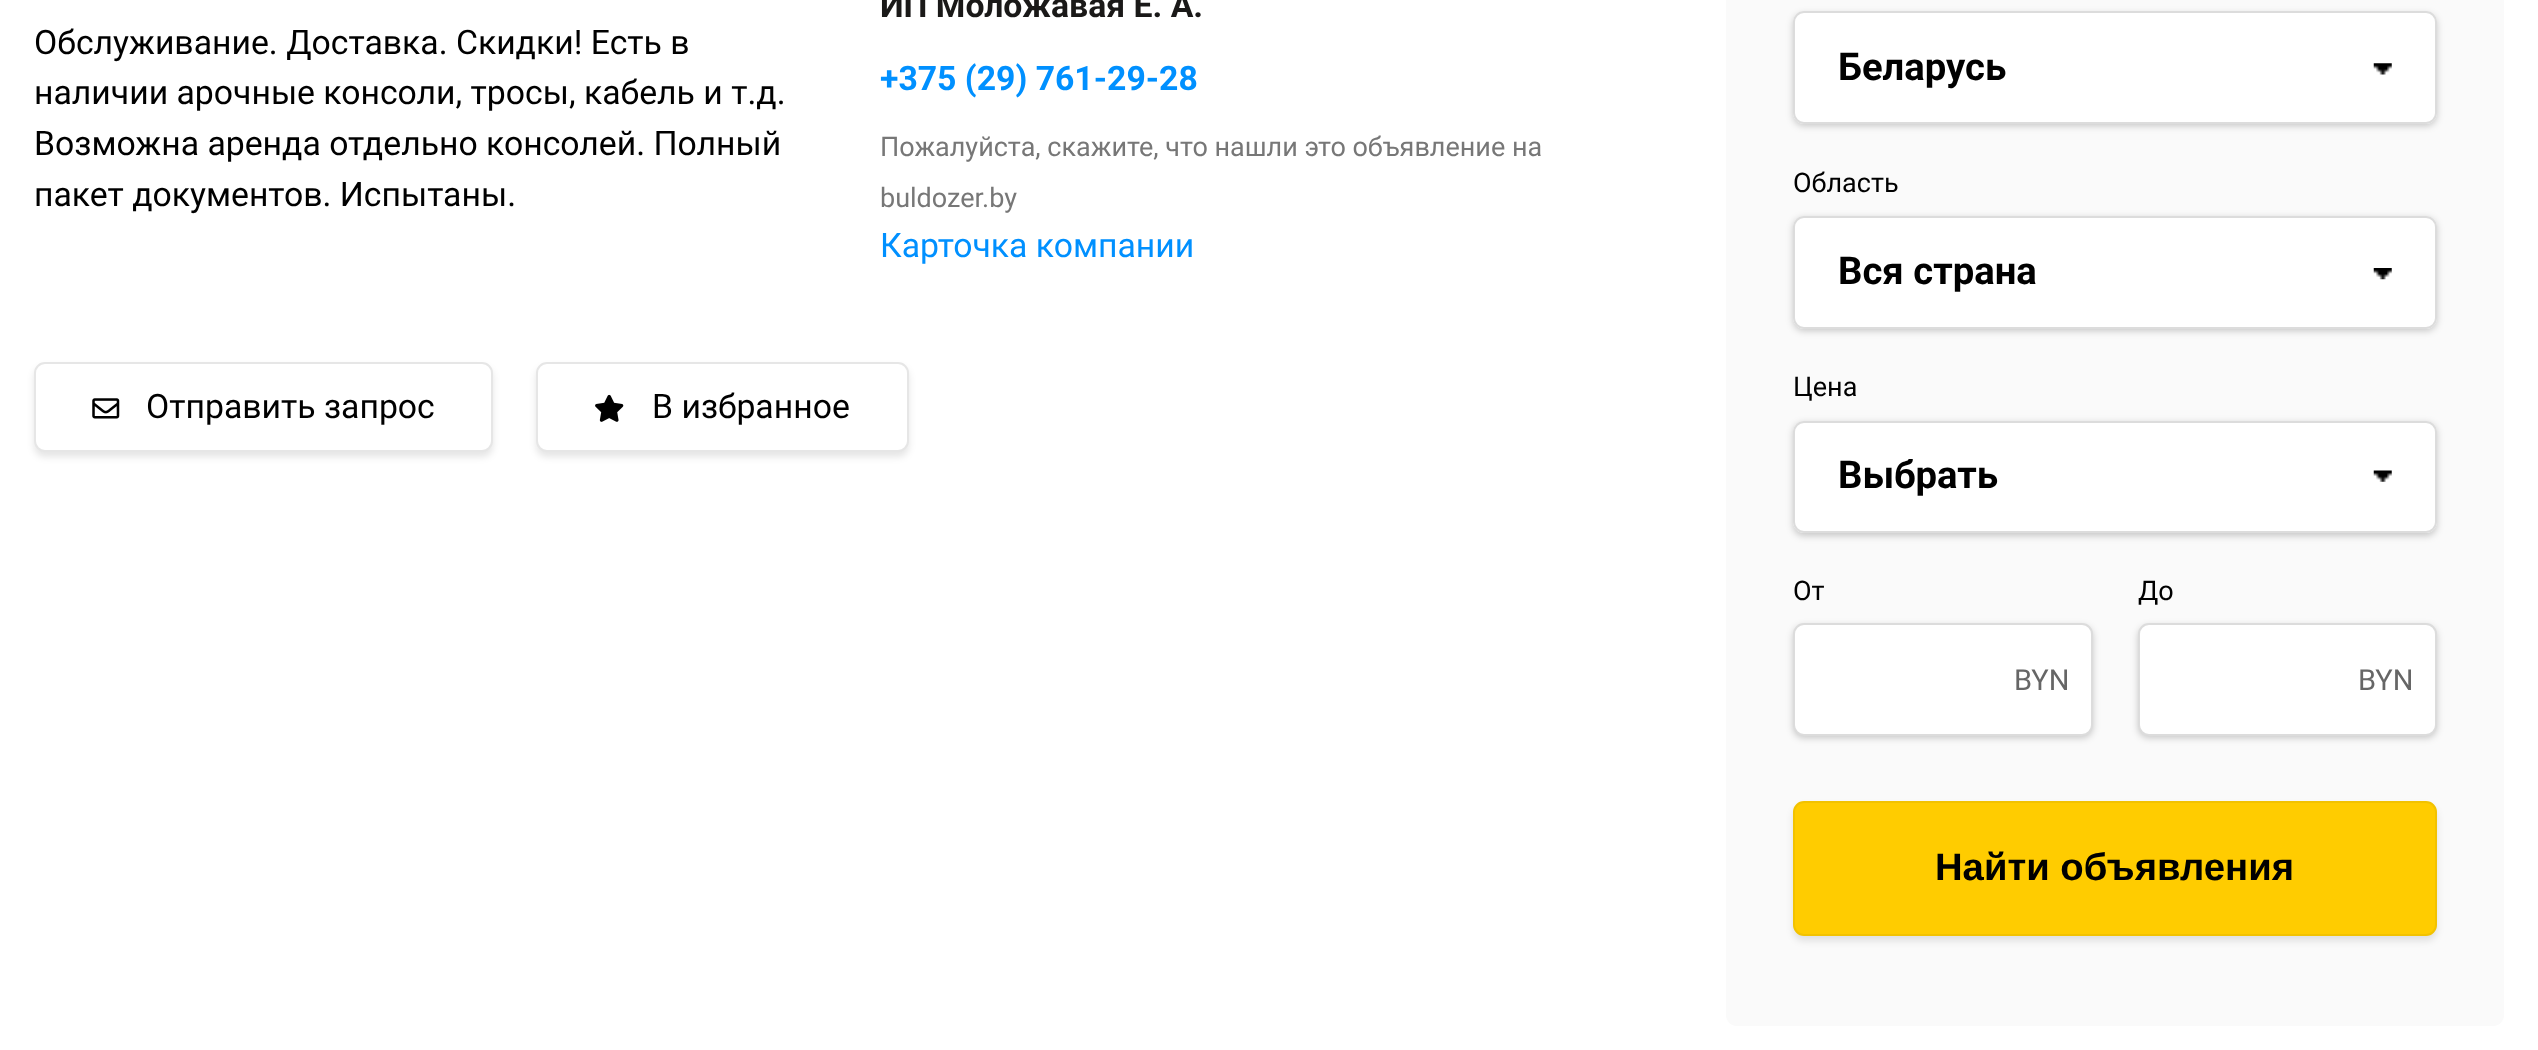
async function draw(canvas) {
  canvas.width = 2538;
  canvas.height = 1050;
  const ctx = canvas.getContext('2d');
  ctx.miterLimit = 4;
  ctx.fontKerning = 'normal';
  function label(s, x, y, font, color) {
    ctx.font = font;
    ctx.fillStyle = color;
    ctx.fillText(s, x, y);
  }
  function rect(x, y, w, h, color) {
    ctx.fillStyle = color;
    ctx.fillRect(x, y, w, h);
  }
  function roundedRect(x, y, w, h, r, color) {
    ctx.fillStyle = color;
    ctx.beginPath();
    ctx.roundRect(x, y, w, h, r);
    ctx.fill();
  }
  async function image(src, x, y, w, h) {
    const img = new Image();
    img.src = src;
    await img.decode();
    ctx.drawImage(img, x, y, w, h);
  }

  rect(0, 0, 2538, 1050, '#fff');
  label('Обслуживание. Доставка. Скидки! Есть в', 34, 54, '33.75px Roboto', '#000');
  label('наличии арочные консоли, тросы, кабель и т.д.', 34, 104, '33.75px Roboto', '#000');
  label('Возможна аренда отдельно консолей. Полный', 34, 155, '33.75px Roboto', '#000');
  label('пакет документов. Испытаны.', 34, 206, '33.75px Roboto', '#000');
  label('ИП Моложавая Е. А.', 880, 17, 'bold 33.75px Roboto', '#1a1918');
  label('+375 (29) 761-29-28', 880, 90, 'bold 33.75px Roboto', '#0090ff');
  label('Пожалуйста, скажите, что нашли это объявление на', 880, 156, '27px Roboto', '#777');
  label('buldozer.by', 880, 207, '27px Roboto', '#777');
  label('Карточка компании', 880, 257, '33.75px Roboto', '#0090ff');
  ctx.fillStyle = '#0000001a';
  ctx.filter = 'blur(3.5px)';
  ctx.beginPath();
  ctx.roundRect(34, 367, 459, 90, 11);
  ctx.fill();
  ctx.filter = 'none';
  ctx.fillStyle = '#fff';
  ctx.beginPath();
  ctx.roundRect(35, 363, 457, 88, 10);
  ctx.fill();
  ctx.strokeStyle = '#e6e6e6';
  ctx.lineWidth = 2;
  ctx.stroke();
  await image('assets/img1.png', 92, 398, 28, 21);
  label('Отправить запрос', 146, 418, '33.75px Roboto', '#000');
  ctx.fillStyle = '#0000001a';
  ctx.filter = 'blur(3.5px)';
  ctx.beginPath();
  ctx.roundRect(536, 367, 373, 90, 11);
  ctx.fill();
  ctx.filter = 'none';
  ctx.fillStyle = '#fff';
  ctx.beginPath();
  ctx.roundRect(537, 363, 371, 88, 10);
  ctx.fill();
  ctx.stroke();
  await image('assets/img2.png', 595, 394, 29, 28);
  label('В избранное', 652, 418, '33.75px Roboto', '#000');
  roundedRect(1726, -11, 778, 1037, 11, '#fafafa');
  ctx.fillStyle = '#00000033';
  ctx.filter = 'blur(3.5px)';
  ctx.beginPath();
  ctx.roundRect(1793, 14, 644, 112, 11);
  ctx.fill();
  ctx.filter = 'none';
  roundedRect(1793, 11, 644, 113, 11, '#fff');
  await image('assets/img3.png', 2373, 63, 19, 12);
  ctx.beginPath();
  ctx.roundRect(1794, 12, 642, 111, 10);
  ctx.strokeStyle = '#dcdcdc';
  ctx.stroke();
  label('Беларусь', 1838, 80, 'bold 38.25px Roboto', '#000');
  label('Область', 1793, 192, '27px Roboto', '#000');
  ctx.fillStyle = '#00000033';
  ctx.filter = 'blur(3.5px)';
  ctx.beginPath();
  ctx.roundRect(1793, 218, 644, 113, 11);
  ctx.fill();
  ctx.filter = 'none';
  roundedRect(1793, 216, 644, 113, 11, '#fff');
  await image('assets/img4.png', 2373, 268, 19, 12);
  ctx.beginPath();
  ctx.roundRect(1794, 217, 642, 111, 10);
  ctx.stroke();
  label('Вся страна', 1838, 284, 'bold 38.25px Roboto', '#000');
  label('Цена', 1793, 396, '27px Roboto', '#000');
  ctx.fillStyle = '#00000033';
  ctx.filter = 'blur(3.5px)';
  ctx.beginPath();
  ctx.roundRect(1793, 423, 644, 113, 11);
  ctx.fill();
  ctx.filter = 'none';
  roundedRect(1793, 421, 644, 112, 11, '#fff');
  await image('assets/img5.png', 2373, 470, 19, 12);
  ctx.beginPath();
  ctx.roundRect(1794, 422, 642, 110, 10);
  ctx.stroke();
  label('Выбрать', 1838, 488, 'bold 38.25px Roboto', '#000');
  label('От', 1793, 600, '27px Roboto', '#000');
  ctx.fillStyle = '#00000033';
  ctx.filter = 'blur(3.5px)';
  ctx.beginPath();
  ctx.roundRect(1793, 626, 300, 112, 11);
  ctx.fill();
  ctx.filter = 'none';
  ctx.fillStyle = '#fff';
  ctx.beginPath();
  ctx.roundRect(1794, 624, 298, 111, 10);
  ctx.fill();
  ctx.stroke();
  label('BYN', 2014, 690, '29px Roboto', '#666');
  label('До', 2138, 600, '27px Roboto', '#000');
  ctx.fillStyle = '#00000033';
  ctx.filter = 'blur(3.5px)';
  ctx.beginPath();
  ctx.roundRect(2138, 626, 299, 112, 11);
  ctx.fill();
  ctx.filter = 'none';
  ctx.fillStyle = '#fff';
  ctx.beginPath();
  ctx.roundRect(2139, 624, 297, 111, 10);
  ctx.fill();
  ctx.stroke();
  label('BYN', 2358, 690, '29px Roboto', '#666');
  ctx.fillStyle = '#0000001a';
  ctx.filter = 'blur(3.5px)';
  ctx.beginPath();
  ctx.roundRect(1793, 806, 644, 135, 11);
  ctx.fill();
  ctx.filter = 'none';
  ctx.fillStyle = '#fc0';
  ctx.beginPath();
  ctx.roundRect(1794, 802, 642, 133, 10);
  ctx.fill();
  ctx.strokeStyle = '#f2c200';
  ctx.stroke();
  label('Найти объявления', 1935, 880, 'bold 38.25px Liberation Sans', '#000');
}

draw(document.querySelector('canvas'));
